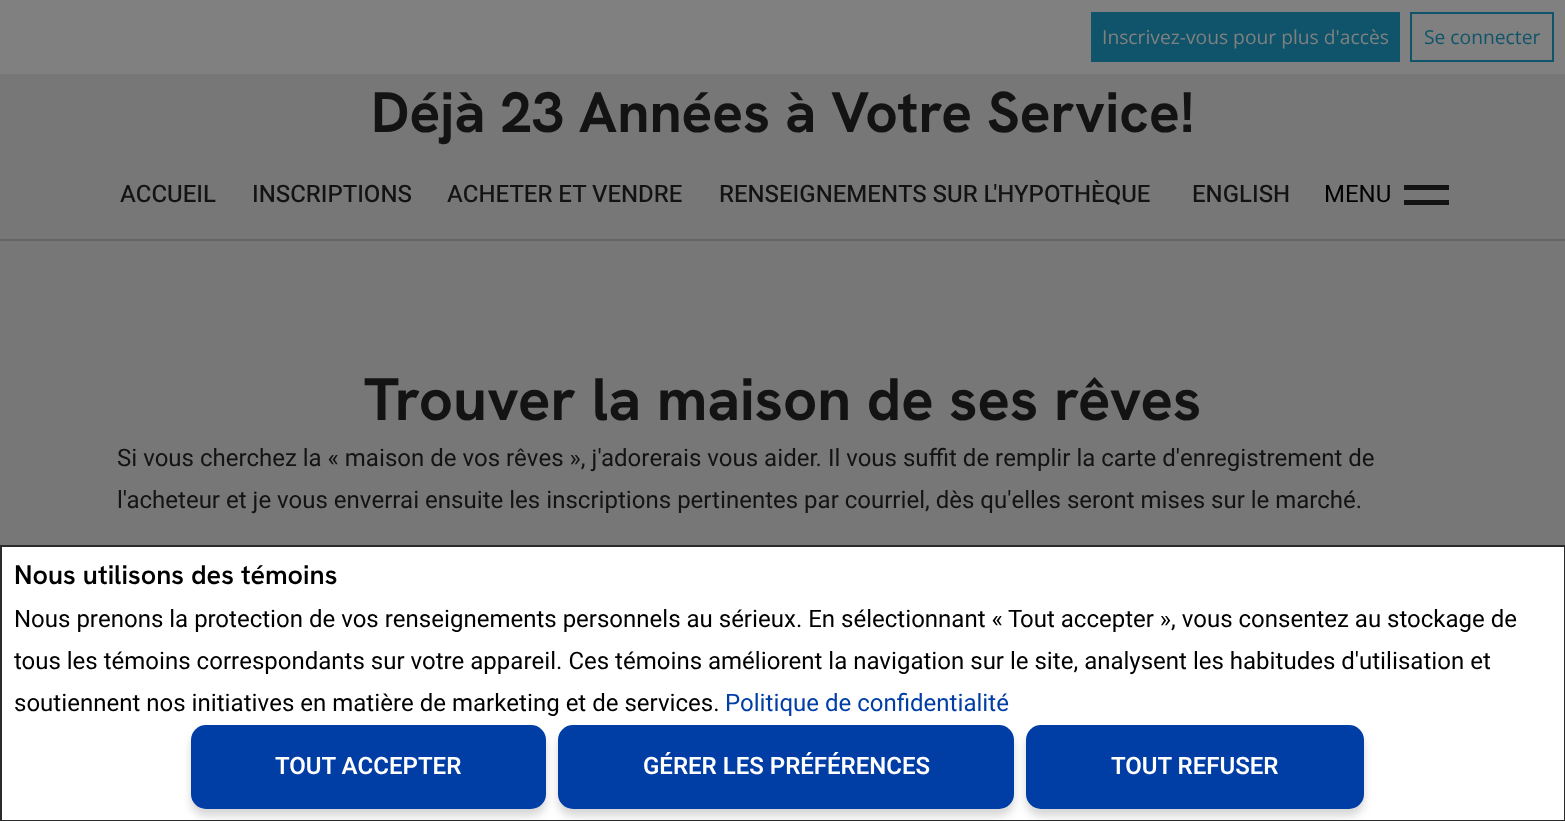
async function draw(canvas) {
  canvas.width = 1565;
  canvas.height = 821;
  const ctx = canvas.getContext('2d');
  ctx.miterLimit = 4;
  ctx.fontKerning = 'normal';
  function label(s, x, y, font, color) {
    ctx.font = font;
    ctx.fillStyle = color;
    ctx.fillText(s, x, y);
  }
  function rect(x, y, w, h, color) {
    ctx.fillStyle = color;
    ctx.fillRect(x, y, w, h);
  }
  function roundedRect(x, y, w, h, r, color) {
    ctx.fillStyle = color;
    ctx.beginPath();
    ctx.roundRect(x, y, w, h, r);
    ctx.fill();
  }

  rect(0, 0, 1565, 821, '#777');
  rect(0, 0, 1565, 74, '#808080');
  rect(1091, 12, 309, 50, '#0f546a');
  label('Inscrivez-vous pour plus d\'accès', 1102, 44, '19.25px Open Sans', '#808080');
  ctx.strokeStyle = '#0f546a';
  ctx.lineWidth = 2;
  ctx.strokeRect(1411, 13, 142, 48);
  label('Se connecter', 1424, 44, '19.25px Open Sans', '#0f546a');
  rect(0, 239, 1565, 2, '#656565');
  label('Déjà 23 Années à Votre Service!', 371, 132, 'bold 57px Hanken Grotesk', '#131313');
  label('ACCUEIL', 120, 202, '500 24px Heebo', '#131313');
  label('INSCRIPTIONS', 252, 202, '500 24px Heebo', '#131313');
  label('ACHETER ET VENDRE', 447, 202, '500 24px Heebo', '#131313');
  label('RENSEIGNEMENTS SUR L\'HYPOTHÈQUE', 719, 202, '500 24px Heebo', '#131313');
  label('ENGLISH', 1192, 202, '500 24px Heebo', '#131313');
  label('MENU', 1324, 202, '24px Heebo', '#000');
  rect(1404, 185, 45, 5, '#131313');
  rect(1404, 200, 45, 5, '#131313');
  label('Trouver la maison de ses rêves', 364, 420, 'bold 60px Hanken Grotesk', '#131313');
  label('Si vous cherchez la « maison de vos rêves », j\'adorerais vous aider. Il vous suffit de remplir la carte d\'enregistrement de', 117, 466, '24px Heebo', '#131313');
  label('l\'acheteur et je vous enverrai ensuite les inscriptions pertinentes par courriel, dès qu\'elles seront mises sur le marché.', 117, 508, '24px Heebo', '#131313');
  ctx.fillStyle = '#fff';
  ctx.beginPath();
  ctx.rect(1, 546, 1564, 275);
  ctx.fill();
  ctx.strokeStyle = '#2b2b2b';
  ctx.stroke();
  label('Nous utilisons des témoins', 14, 584, '600 27px Hanken Grotesk', '#000');
  label('Nous prenons la protection de vos renseignements personnels au sérieux. En sélectionnant « Tout accepter », vous consentez au stockage de', 14, 627, '24px Heebo', '#000');
  label('tous les témoins correspondants sur votre appareil. Ces témoins améliorent la navigation sur le site, analysent les habitudes d\'utilisation et', 14, 669, '24px Heebo', '#000');
  label('soutiennent nos initiatives en matière de marketing et de services.', 14, 711, '24px Heebo', '#000');
  label('Politique de confidentialité', 725, 711, '24px Heebo', '#003da5');
  ctx.fillStyle = '#00000029';
  ctx.filter = 'blur(4px)';
  ctx.beginPath();
  ctx.roundRect(191, 732, 355, 84, 15);
  ctx.fill();
  ctx.filter = 'none';
  roundedRect(191, 725, 355, 84, 15, '#003da5');
  label('TOUT ACCEPTER', 275, 774, '600 24px Heebo', '#fff');
  ctx.fillStyle = '#00000029';
  ctx.filter = 'blur(4px)';
  ctx.beginPath();
  ctx.roundRect(558, 732, 456, 84, 15);
  ctx.fill();
  ctx.filter = 'none';
  roundedRect(558, 725, 456, 84, 15, '#003da5');
  label('GÉRER LES PRÉFÉRENCES', 643, 774, '600 24px Heebo', '#fff');
  ctx.fillStyle = '#00000029';
  ctx.filter = 'blur(4px)';
  ctx.beginPath();
  ctx.roundRect(1026, 732, 338, 84, 15);
  ctx.fill();
  ctx.filter = 'none';
  roundedRect(1026, 725, 338, 84, 15, '#003da5');
  label('TOUT REFUSER', 1111, 774, '600 24px Heebo', '#fff');
}

draw(document.querySelector('canvas'));
